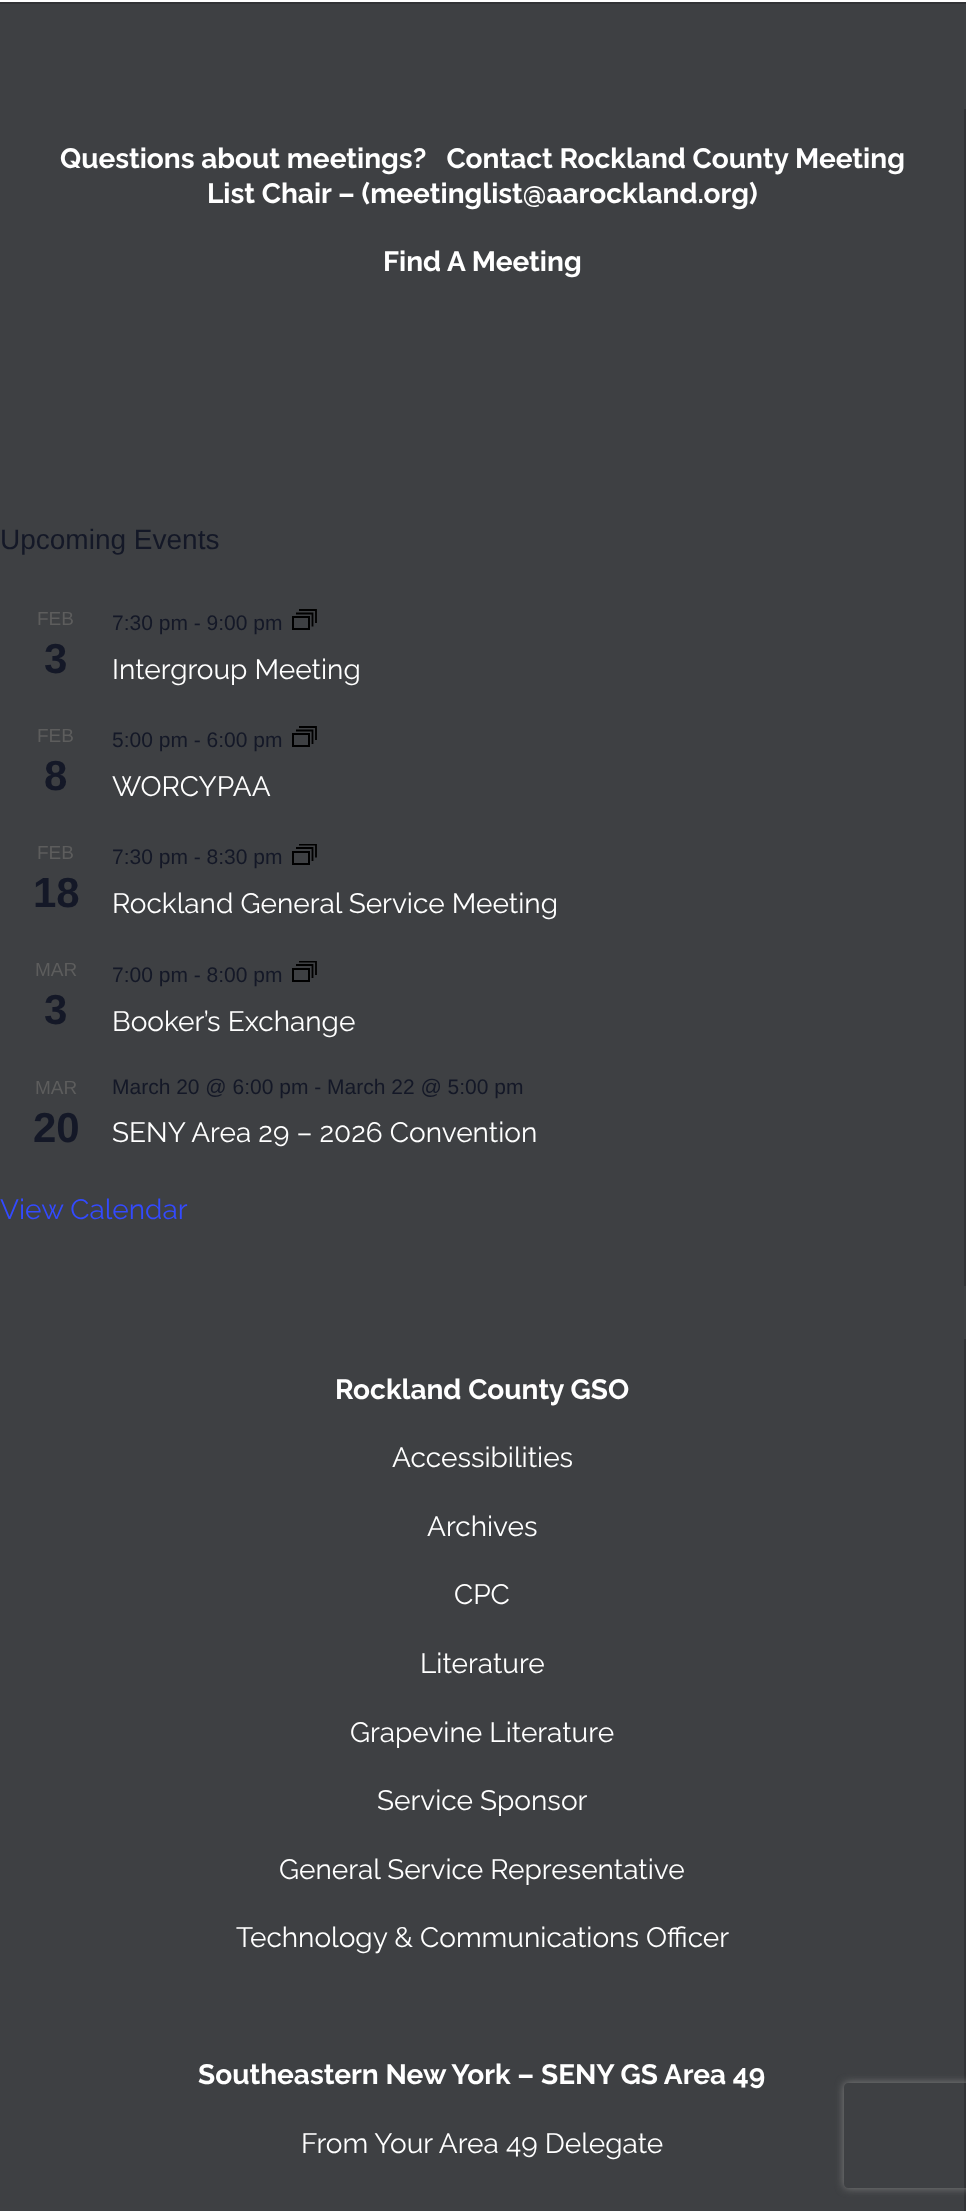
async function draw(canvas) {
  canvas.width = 966;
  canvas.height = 2211;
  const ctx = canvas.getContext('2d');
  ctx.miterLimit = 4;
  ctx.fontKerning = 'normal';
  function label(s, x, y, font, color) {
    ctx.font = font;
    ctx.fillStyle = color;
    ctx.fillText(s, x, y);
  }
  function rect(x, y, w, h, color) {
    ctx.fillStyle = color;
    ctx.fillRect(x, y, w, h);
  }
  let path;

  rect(0, 0, 966, 2211, '#fff');
  rect(0, 4, 966, 2207, '#3e4043');
  rect(0, 2, 966, 2, '#323336');
  rect(964, 109, 2, 1177, '#323336');
  label('Questions about meetings?   Contact Rockland County Meeting', 60, 168, 'bold 28px Raleway', '#fff');
  label('List Chair – (meetinglist@aarockland.org)', 207, 203, 'bold 28px Raleway', '#fff');
  label('Find A Meeting', 383, 271, 'bold 28px Raleway', '#fff');
  label('Upcoming Events', 0, 549, '28px Liberation Sans', '#141827');
  label('FEB', 37, 625, '19px Liberation Sans', '#5d5d5d');
  label('3', 44, 673, 'bold 42px Liberation Sans', '#141827');
  label('7:30 pm - 9:00 pm', 112, 630, '21px Liberation Sans', '#141827');
  ctx.strokeStyle = '#000';
  ctx.lineWidth = 2;
  ctx.strokeRect(293, 617, 16, 12);
  path = new Path2D('M296 613.5H312.5V626.5M299 610H316V623');
  ctx.lineWidth = 1.8;
  ctx.stroke(path);
  label('Intergroup Meeting', 112, 679, '28px Raleway', '#fff');
  label('FEB', 37, 742, '19px Liberation Sans', '#5d5d5d');
  label('8', 44, 790, 'bold 42px Liberation Sans', '#141827');
  label('5:00 pm - 6:00 pm', 112, 747, '21px Liberation Sans', '#141827');
  ctx.lineWidth = 2;
  ctx.strokeRect(293, 734, 16, 12);
  path = new Path2D('M296 730.5H312.5V744M299 727H316V740');
  ctx.lineWidth = 1.8;
  ctx.stroke(path);
  label('WORCYPAA', 112, 796, '28px Raleway', '#fff');
  label('FEB', 37, 859, '19px Liberation Sans', '#5d5d5d');
  label('18', 33, 907, 'bold 42px Liberation Sans', '#141827');
  label('7:30 pm - 8:30 pm', 112, 864, '21px Liberation Sans', '#141827');
  ctx.lineWidth = 2;
  ctx.strokeRect(293, 852, 16, 12);
  path = new Path2D('M296 848H312.5V861');
  ctx.lineWidth = 1.8;
  ctx.stroke(path);
  ctx.save();
  ctx.beginPath();
  ctx.rect(292, 844, 25, 21);
  ctx.clip();
  path = new Path2D('M299 844.5H316V857.5');
  ctx.stroke(path);
  ctx.restore();
  label('Rockland General Service Meeting', 112, 913, '28px Raleway', '#fff');
  label('MAR', 35, 976, '19px Liberation Sans', '#5d5d5d');
  label('3', 44, 1024, 'bold 42px Liberation Sans', '#141827');
  label('7:00 pm - 8:00 pm', 112, 982, '21px Liberation Sans', '#141827');
  ctx.lineWidth = 2;
  ctx.strokeRect(293, 969, 16, 12);
  path = new Path2D('M296 965H312.5V978');
  ctx.lineWidth = 1.8;
  ctx.stroke(path);
  ctx.save();
  ctx.beginPath();
  ctx.rect(292, 961, 25, 21);
  ctx.clip();
  path = new Path2D('M299 961.5H316V975');
  ctx.stroke(path);
  ctx.restore();
  label('Booker’s Exchange', 112, 1031, '28px Raleway', '#fff');
  label('MAR', 35, 1094, '19px Liberation Sans', '#5d5d5d');
  label('20', 33, 1142, 'bold 42px Liberation Sans', '#141827');
  label('March 20 @ 6:00 pm - March 22 @ 5:00 pm', 112, 1094, '21px Liberation Sans', '#141827');
  label('SENY Area 29 – 2026 Convention', 112, 1142, '28px Raleway', '#fff');
  label('View Calendar', 0, 1219, '28px Raleway', '#334aff');
  rect(964, 1339, 2, 872, '#323336');
  label('Rockland County GSO', 335, 1399, 'bold 28px Raleway', '#fff');
  label('Accessibilities', 392, 1467, '28px Raleway', '#fff');
  label('Archives', 427, 1536, '28px Raleway', '#fff');
  label('CPC', 454, 1604, '28px Raleway', '#fff');
  label('Literature', 420, 1673, '28px Raleway', '#fff');
  label('Grapevine Literature', 350, 1742, '28px Raleway', '#fff');
  label('Service Sponsor', 377, 1810, '28px Raleway', '#fff');
  label('General Service Representative', 279, 1879, '28px Raleway', '#fff');
  label('Technology & Communications Officer', 236, 1947, '28px Raleway', '#fff');
  label('Southeastern New York – SENY GS Area 49', 198, 2084, 'bold 28px Raleway', '#fff');
  label('From Your Area 49 Delegate', 301, 2153, '28px Raleway', '#fff');
  ctx.save();
  path = new Path2D('M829 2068H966V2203H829ZM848 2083H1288C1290 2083 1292 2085 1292 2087V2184C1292 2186 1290 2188 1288 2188H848C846 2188 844 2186 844 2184V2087C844 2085 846 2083 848 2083Z');
  ctx.clip(path, 'evenodd');
  ctx.fillStyle = '#808080';
  ctx.filter = 'blur(4.5px)';
  ctx.beginPath();
  ctx.roundRect(844, 2083, 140, 105, 4);
  ctx.fill();
  ctx.filter = 'none';
  ctx.restore();
}

draw(document.querySelector('canvas'));
